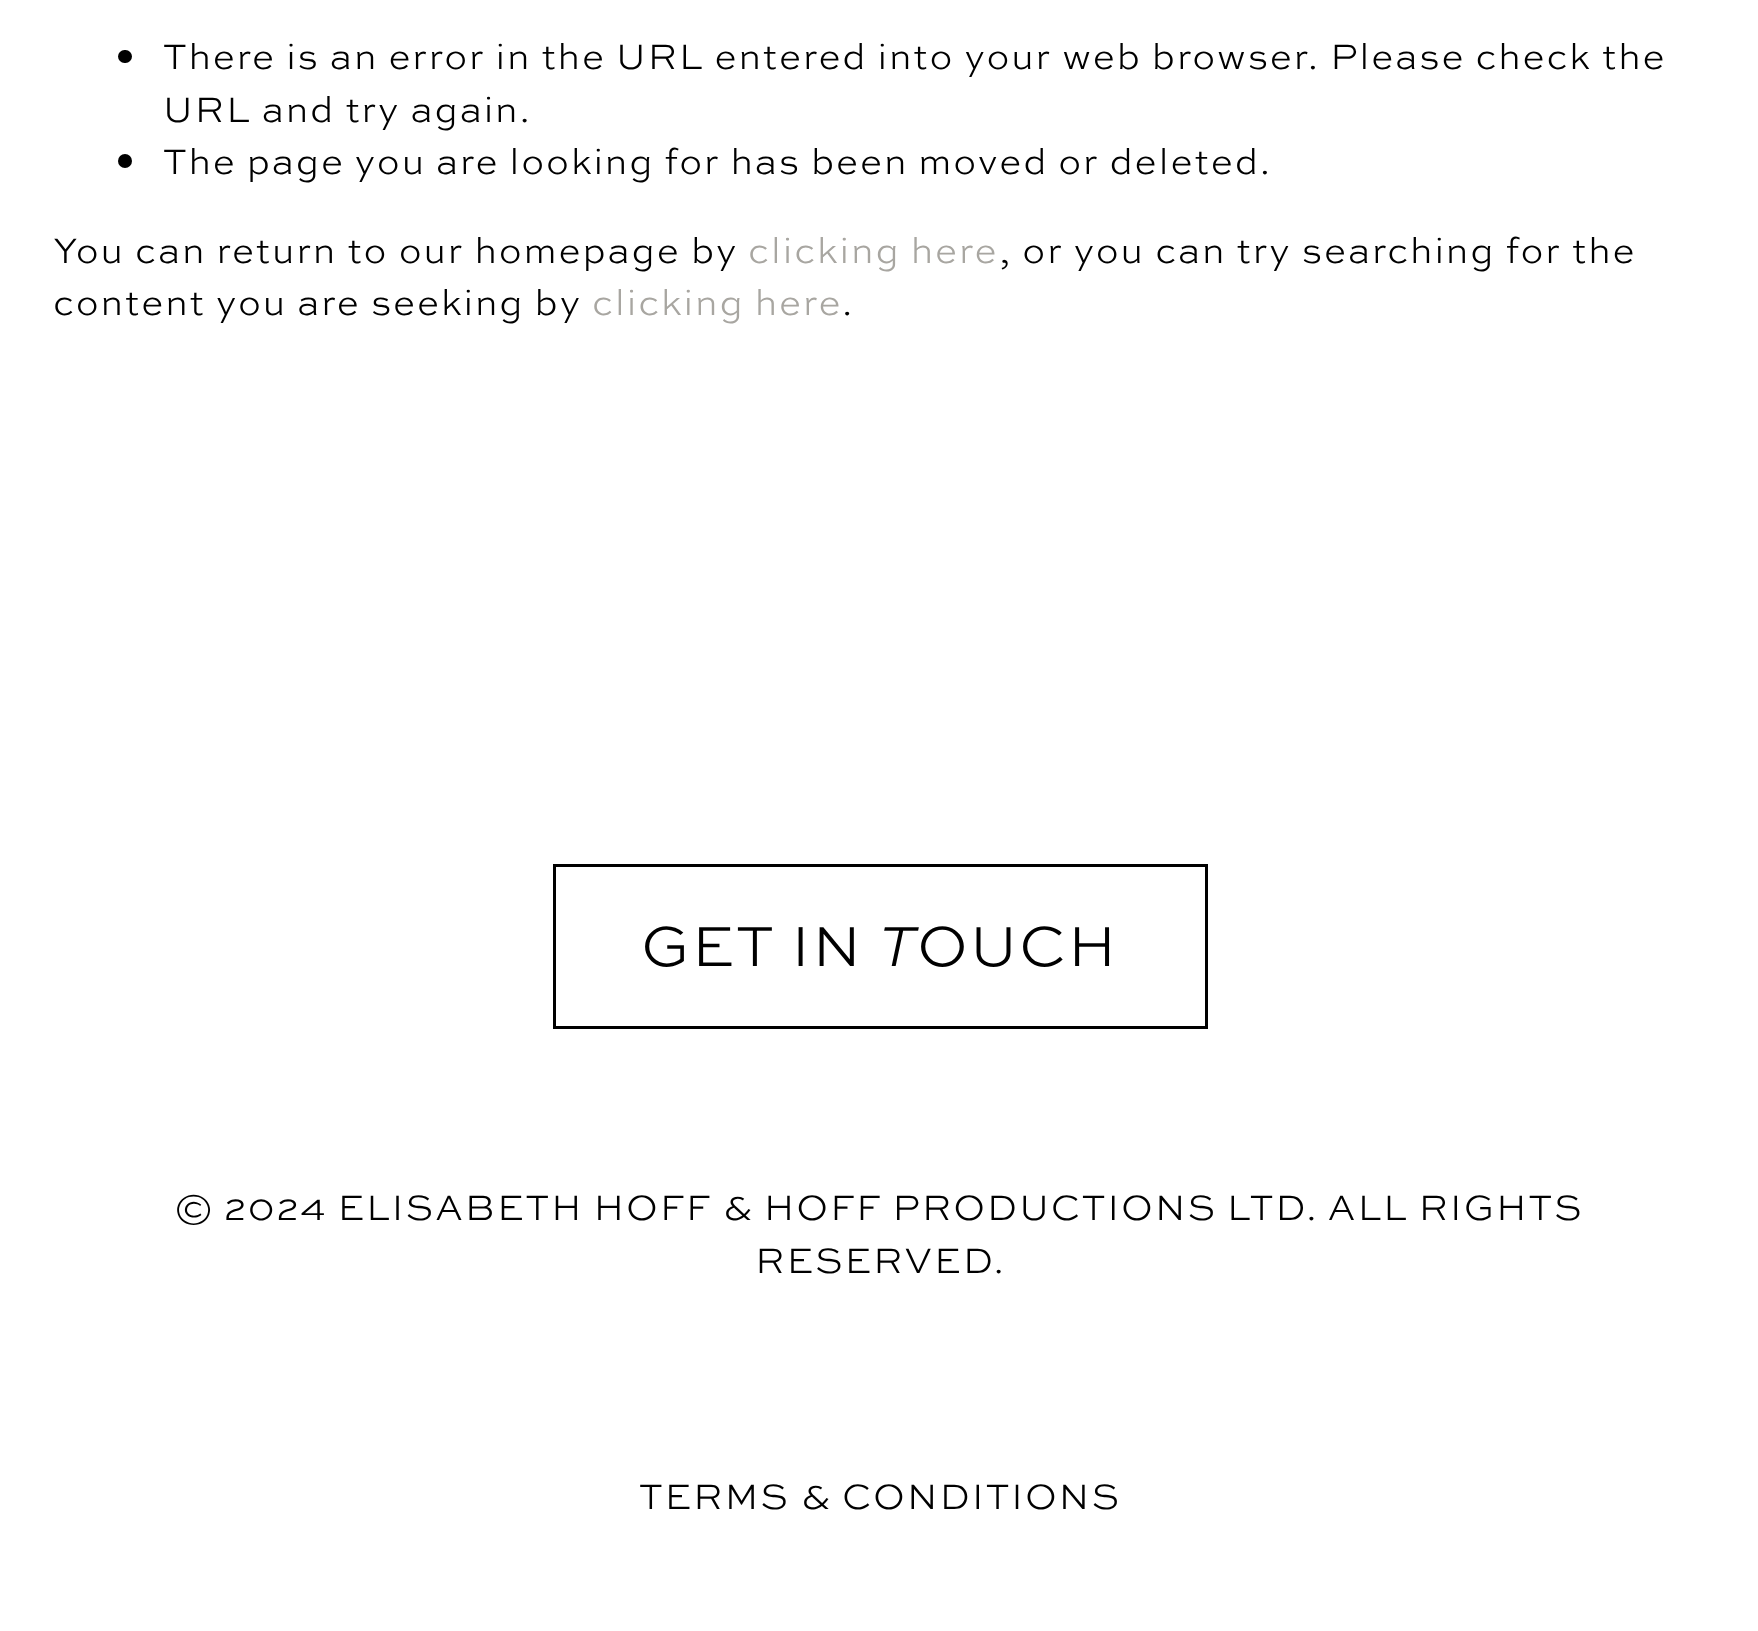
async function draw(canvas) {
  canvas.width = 1758;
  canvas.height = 1631;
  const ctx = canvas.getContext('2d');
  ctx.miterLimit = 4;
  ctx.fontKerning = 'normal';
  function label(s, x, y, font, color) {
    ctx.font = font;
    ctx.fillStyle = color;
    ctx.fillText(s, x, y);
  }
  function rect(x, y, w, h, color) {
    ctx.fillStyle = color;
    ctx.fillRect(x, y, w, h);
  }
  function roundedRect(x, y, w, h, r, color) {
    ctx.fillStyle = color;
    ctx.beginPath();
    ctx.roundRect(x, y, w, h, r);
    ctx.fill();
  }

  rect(0, 0, 1758, 1631, '#fff');
  roundedRect(118, 50, 14, 13, 6.5, '#000');
  ctx.letterSpacing = '1.85px';
  ctx.wordSpacing = '-0.1px';
  label('There is an error in the URL entered into your web browser. Please check the', 163, 69, '300 37.2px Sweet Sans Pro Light', '#000');
  ctx.wordSpacing = '0px';
  label('URL and try again.', 163, 122, '300 37.2px Sweet Sans Pro Light', '#000');
  ctx.beginPath();
  ctx.arc(125, 161, 7, 0, 2 * Math.PI);
  ctx.fill();
  ctx.wordSpacing = '-0.25px';
  label('The page you are looking for has been moved or deleted.', 163, 174, '300 37.2px Sweet Sans Pro Light', '#000');
  ctx.wordSpacing = '0px';
  label('You can return to our homepage by', 53, 263, '300 37.2px Sweet Sans Pro Light', '#000');
  label('clicking here', 748, 263, '300 37.2px Sweet Sans Pro Light', '#a8a6a1');
  label(', or you can try searching for the', 999, 263, '300 37.2px Sweet Sans Pro Light', '#000');
  label('content you are seeking by', 53, 315, '300 37.2px Sweet Sans Pro Light', '#000');
  label('clicking here', 592, 315, '300 37.2px Sweet Sans Pro Light', '#a8a6a1');
  label('.', 842, 315, '300 37.2px Sweet Sans Pro Light', '#000');
  label('GET IN', 641, 966, '300 59.5px Sweet Sans Pro Light', '#000');
  rect(553, 864, 654, 3, '#000');
  rect(553, 1026, 366, 3, '#000');
  rect(553, 864, 3, 165, '#000');
  label('T', 879, 966, 'italic 300 59.5px Sweet Sans Pro Light', '#000');
  rect(1205, 864, 3, 165, '#000');
  rect(919, 1026, 288, 3, '#000');
  label('OUCH', 917, 966, '300 59.5px Sweet Sans Pro Light', '#000');
  ctx.wordSpacing = '-0.25px';
  label('© 2024 ELISABETH HOFF & HOFF PRODUCTIONS LTD. ALL RIGHTS', 175, 1220, '300 37.2px Sweet Sans Pro Light', '#000');
  ctx.wordSpacing = '0px';
  label('RESERVED.', 755, 1273, '300 37.2px Sweet Sans Pro Light', '#000');
  label('TERMS & CONDITIONS', 639, 1509, '300 37.2px Sweet Sans Pro Light', '#000');
}

draw(document.querySelector('canvas'));
